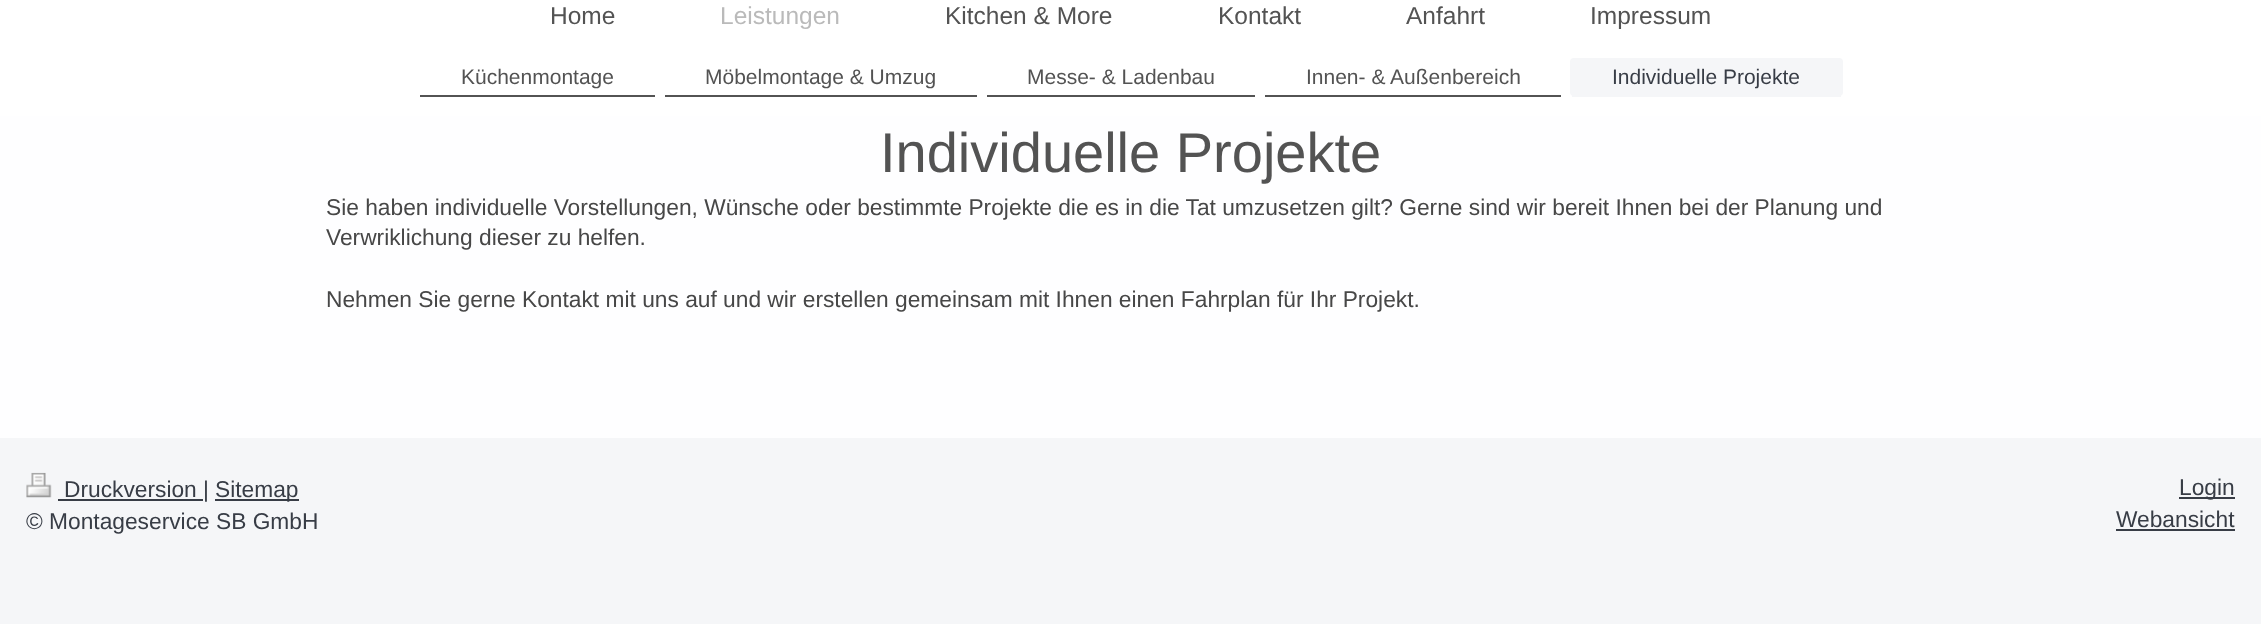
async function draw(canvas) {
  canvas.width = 2261;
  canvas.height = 624;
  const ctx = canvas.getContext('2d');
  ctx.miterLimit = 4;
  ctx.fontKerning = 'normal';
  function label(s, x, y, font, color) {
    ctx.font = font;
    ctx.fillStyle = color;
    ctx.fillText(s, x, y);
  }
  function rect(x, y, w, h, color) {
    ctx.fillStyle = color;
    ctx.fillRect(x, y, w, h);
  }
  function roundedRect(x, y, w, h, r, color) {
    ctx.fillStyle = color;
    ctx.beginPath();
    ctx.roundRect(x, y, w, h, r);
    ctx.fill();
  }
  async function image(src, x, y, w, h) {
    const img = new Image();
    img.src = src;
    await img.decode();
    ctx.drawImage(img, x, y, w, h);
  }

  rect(0, 0, 2261, 624, '#f5f6f8');
  rect(0, 0, 2261, 116, '#fff');
  label('Home', 550, 24, '24.5px Liberation Sans', '#535353');
  label('Leistungen', 720, 24, '24.5px Liberation Sans', '#bababa');
  label('Kitchen & More', 945, 24, '24.5px Liberation Sans', '#535353');
  label('Kontakt', 1218, 24, '24.5px Liberation Sans', '#535353');
  label('Anfahrt', 1406, 24, '24.5px Liberation Sans', '#535353');
  label('Impressum', 1590, 24, '24.5px Liberation Sans', '#535353');
  rect(420, 95, 235, 2, '#535353');
  label('Küchenmontage', 461, 84, '21px Liberation Sans', '#535353');
  rect(665, 95, 312, 2, '#535353');
  label('Möbelmontage & Umzug', 705, 84, '21px Liberation Sans', '#535353');
  rect(987, 95, 268, 2, '#535353');
  label('Messe- & Ladenbau', 1027, 84, '21px Liberation Sans', '#535353');
  rect(1265, 95, 296, 2, '#535353');
  label('Innen- & Außenbereich', 1306, 84, '21px Liberation Sans', '#535353');
  roundedRect(1570, 58, 273, 38, 4, '#f5f6f8');
  rect(1572, 95, 269, 2, '#f5f6f8');
  label('Individuelle Projekte', 1612, 84, '21px Liberation Sans', '#383d46');
  rect(0, 116, 2261, 322, '#fefeff');
  label('Individuelle Projekte', 880, 172, '56px Liberation Sans', '#535353');
  label('Sie haben individuelle Vorstellungen, Wünsche oder bestimmte Projekte die es in die Tat umzusetzen gilt? Gerne sind wir bereit Ihnen bei der Planung und', 326, 215, '22.75px Liberation Sans', '#474747');
  label('Verwriklichung dieser zu helfen.', 326, 245, '22.75px Liberation Sans', '#474747');
  label('Nehmen Sie gerne Kontakt mit uns auf und wir erstellen gemeinsam mit Ihnen einen Fahrplan für Ihr Projekt.', 326, 307, '22.75px Liberation Sans', '#474747');
  await image('assets/img1.png', 26, 472, 26, 26);
  rect(58, 499, 145, 2, '#383d46');
  label('Druckversion |', 64, 497, '22.75px Liberation Sans', '#383d46');
  rect(215, 499, 84, 2, '#383d46');
  label('Sitemap', 215, 497, '22.75px Liberation Sans', '#383d46');
  label('© Montageservice SB GmbH', 26, 529, '22.75px Liberation Sans', '#383d46');
  rect(2179, 497, 56, 2, '#383d46');
  label('Login', 2179, 495, '22.75px Liberation Sans', '#383d46');
  label('Webansicht', 2116, 527, '22.75px Liberation Sans', '#383d46');
  rect(2116, 529, 119, 2, '#383d46');
}

draw(document.querySelector('canvas'));
